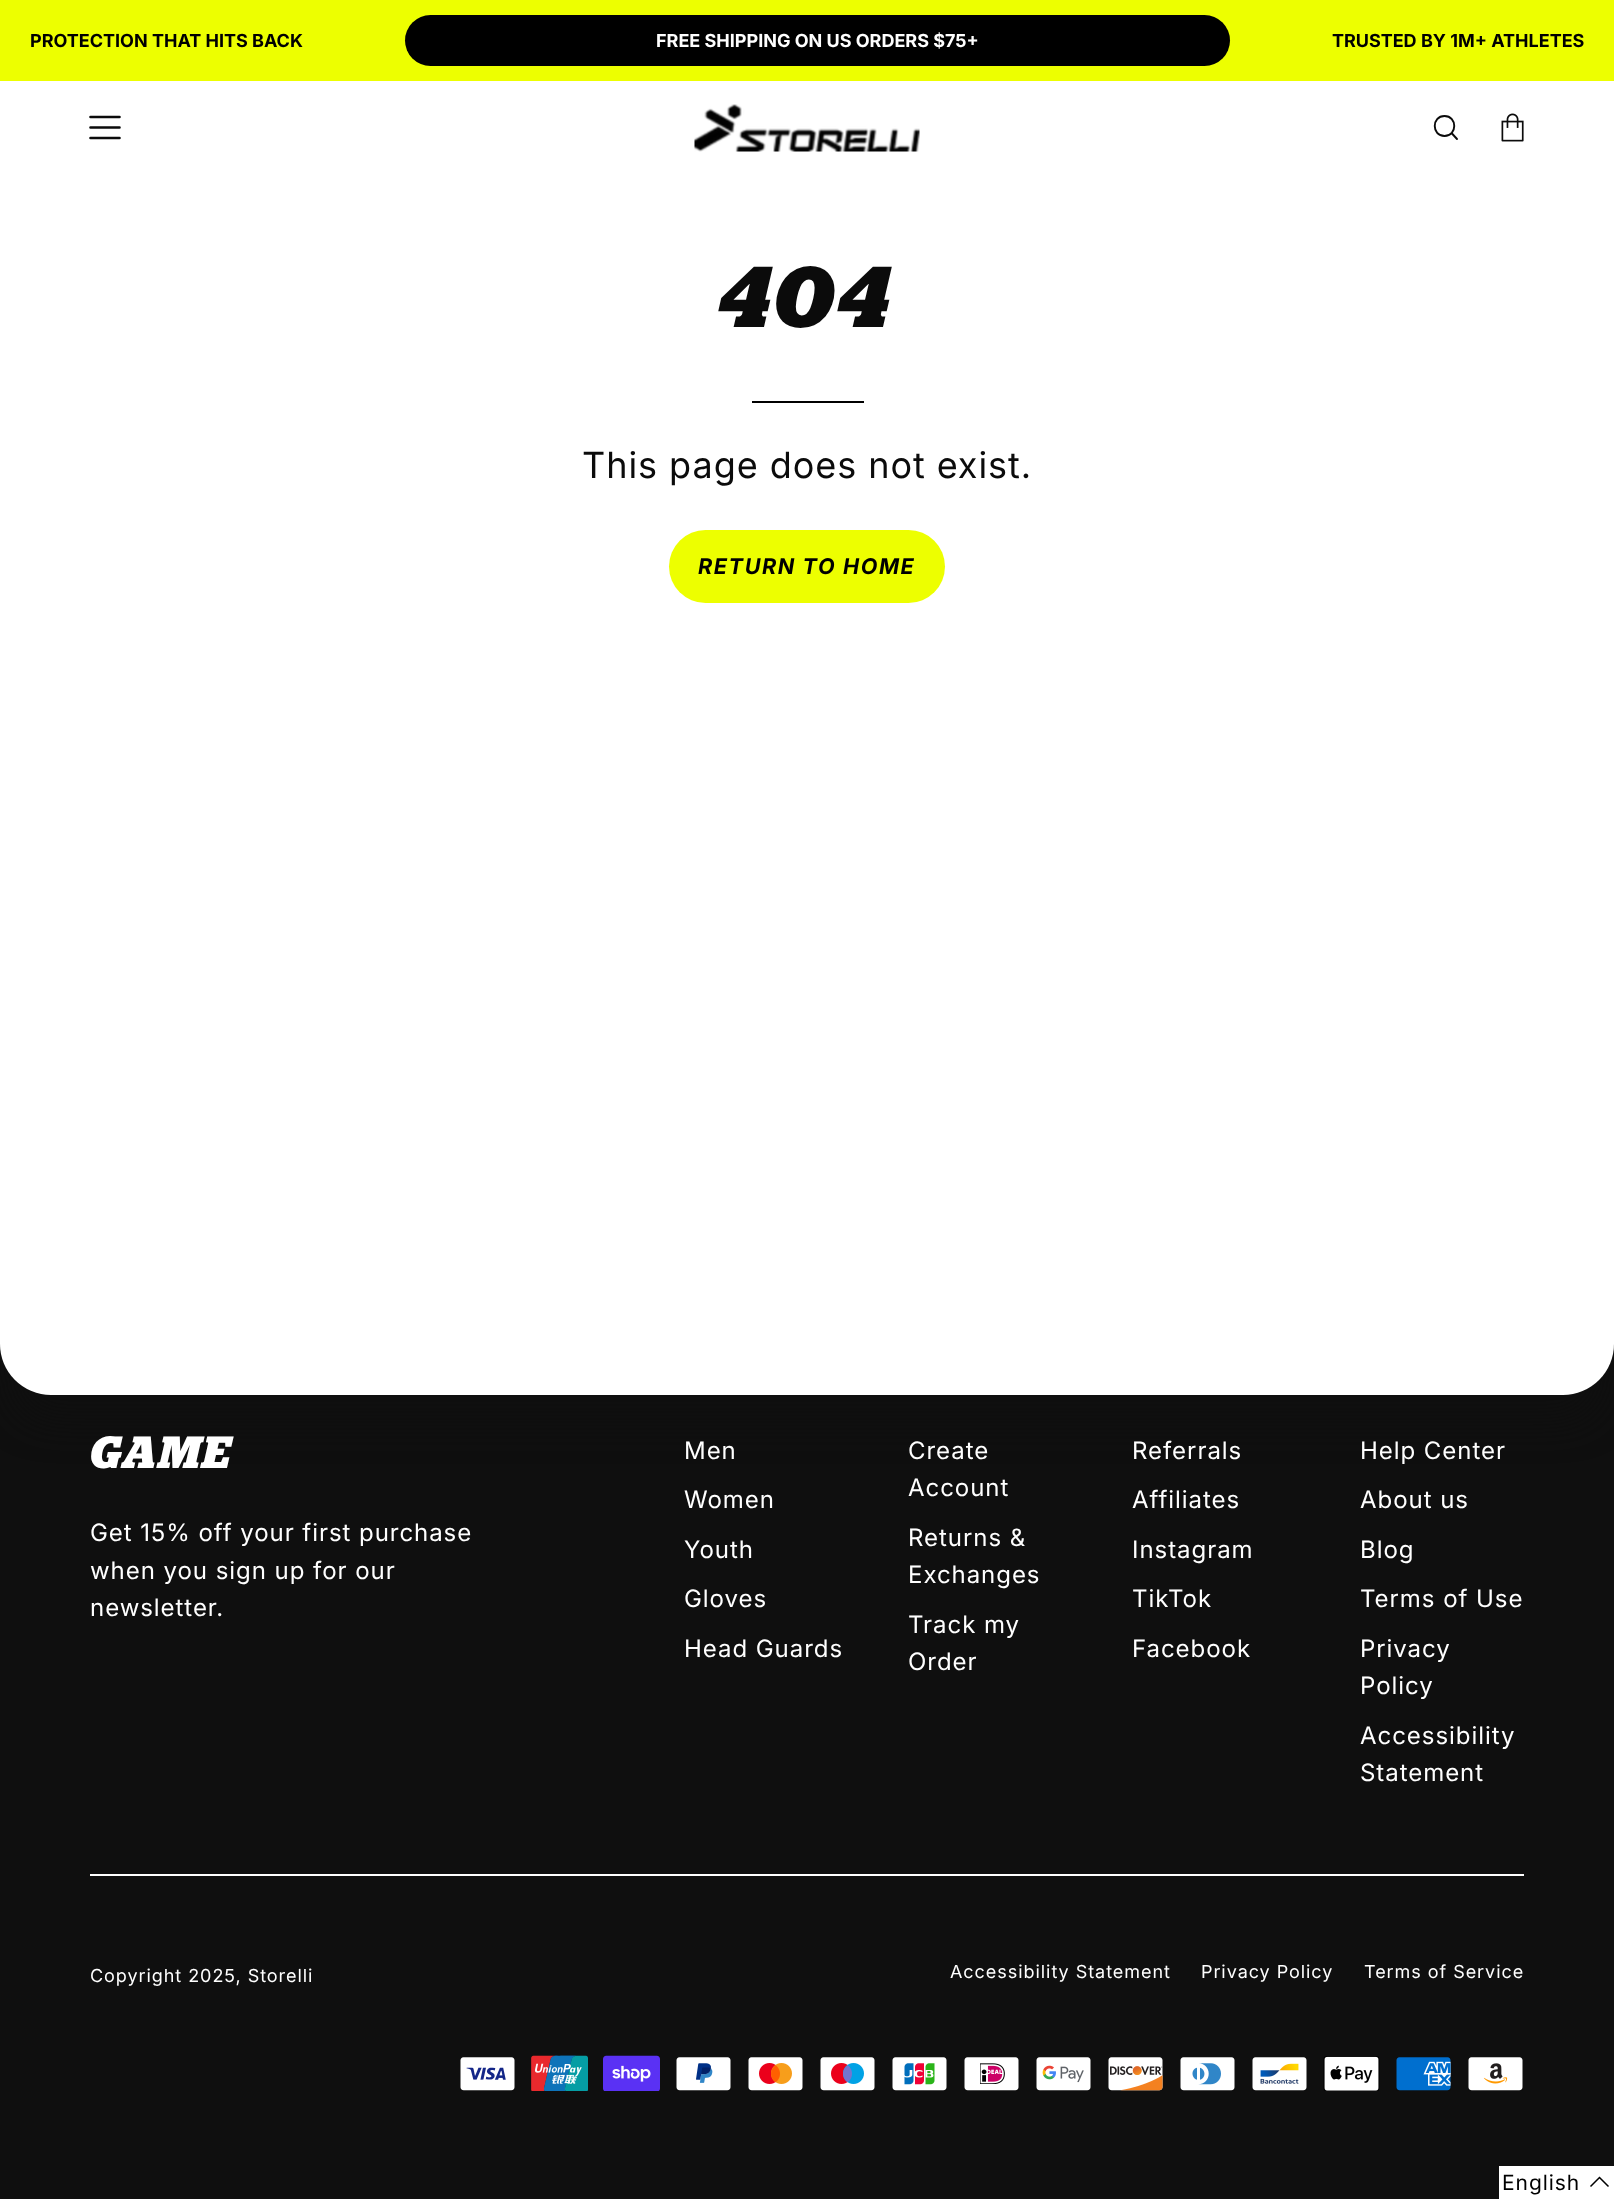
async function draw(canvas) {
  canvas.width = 1614;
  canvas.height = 2199;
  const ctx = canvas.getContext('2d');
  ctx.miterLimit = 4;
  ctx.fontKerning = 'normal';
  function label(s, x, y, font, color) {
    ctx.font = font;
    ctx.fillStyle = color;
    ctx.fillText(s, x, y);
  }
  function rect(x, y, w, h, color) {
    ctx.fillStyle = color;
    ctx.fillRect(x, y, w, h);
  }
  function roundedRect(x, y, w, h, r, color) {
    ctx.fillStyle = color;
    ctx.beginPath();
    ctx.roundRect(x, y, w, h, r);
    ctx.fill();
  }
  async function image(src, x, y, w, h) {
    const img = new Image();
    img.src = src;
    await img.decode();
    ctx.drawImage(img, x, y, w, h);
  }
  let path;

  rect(0, 0, 1614, 2199, '#fff');
  rect(0, 0, 1614, 81, '#edff00');
  label('PROTECTION THAT HITS BACK', 30, 47, 'bold 18px Inter', '#000');
  roundedRect(405, 15, 825, 51, 25.5, '#000');
  label('FREE SHIPPING ON US ORDERS $75+', 656, 47, 'bold 18px Inter', '#fff');
  label('TRUSTED BY 1M+ ATHLETES', 1332, 47, 'bold 18px Inter', '#000');
  path = new Path2D('M90.5 127.5H119.5M90.5 117H119.5M90.5 138H119.5');
  ctx.strokeStyle = '#0b0b0b';
  ctx.lineWidth = 2.6;
  ctx.lineCap = 'round';
  ctx.lineJoin = 'round';
  ctx.stroke(path);
  await image('assets/img1.png', 694, 104, 226, 48);
  path = new Path2D('M1444.5 136C1457.5 136 1457.5 116 1444.5 116C1431.5 116 1431.5 136 1444.5 136ZM1451.5 133L1457 139');
  ctx.lineWidth = 1.9;
  ctx.stroke(path);
  await image('assets/img2.png', 1501, 113, 23, 29);
  rect(0, 1344, 1614, 855, '#0f0f0f');
  ctx.filter = 'blur(19px)';
  ctx.beginPath();
  ctx.roundRect(15, 227, 1584, 1191, 36);
  ctx.fill();
  ctx.filter = 'none';
  ctx.fillStyle = '#fff';
  ctx.beginPath();
  ctx.roundRect(0, 174, 1614, 1221, [0, 0, 51, 51]);
  ctx.fill();
  ctx.letterSpacing = '4px';
  label('404', 719, 327, 'italic bold 86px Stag', '#0b0b0b');
  rect(752, 401, 112, 2, '#000');
  ctx.letterSpacing = '0.95px';
  label('This page does not exist.', 582, 478, '36px Inter', '#0b0b0b');
  roundedRect(669, 530, 276, 73, 36.5, '#edff00');
  ctx.letterSpacing = '1.6px';
  label('RETURN TO HOME', 698, 574, 'italic bold 21.6px Inter', '#000');
  ctx.letterSpacing = '2px';
  label('GAME', 90, 1468, 'italic bold 45px Stag', '#fff');
  ctx.letterSpacing = '0.95px';
  label('Get 15% off your first purchase', 90, 1541, '24px Inter', '#fff');
  label('when you sign up for our', 90, 1579, '24px Inter', '#fff');
  label('newsletter.', 90, 1616, '24px Inter', '#fff');
  label('Men', 684, 1459, '24px Inter', '#fff');
  label('Women', 684, 1508, '24px Inter', '#fff');
  label('Youth', 684, 1558, '24px Inter', '#fff');
  label('Gloves', 684, 1607, '24px Inter', '#fff');
  label('Head Guards', 684, 1657, '24px Inter', '#fff');
  label('Create', 908, 1459, '24px Inter', '#fff');
  label('Account', 908, 1496, '24px Inter', '#fff');
  label('Returns &', 908, 1546, '24px Inter', '#fff');
  label('Exchanges', 908, 1583, '24px Inter', '#fff');
  label('Track my', 908, 1633, '24px Inter', '#fff');
  label('Order', 908, 1670, '24px Inter', '#fff');
  label('Referrals', 1132, 1459, '24px Inter', '#fff');
  label('Affiliates', 1132, 1508, '24px Inter', '#fff');
  label('Instagram', 1132, 1558, '24px Inter', '#fff');
  label('TikTok', 1132, 1607, '24px Inter', '#fff');
  label('Facebook', 1132, 1657, '24px Inter', '#fff');
  label('Help Center', 1360, 1459, '24px Inter', '#fff');
  label('About us', 1360, 1508, '24px Inter', '#fff');
  label('Blog', 1360, 1558, '24px Inter', '#fff');
  label('Terms of Use', 1360, 1607, '24px Inter', '#fff');
  label('Privacy', 1360, 1657, '24px Inter', '#fff');
  label('Policy', 1360, 1694, '24px Inter', '#fff');
  label('Accessibility', 1360, 1744, '24px Inter', '#fff');
  label('Statement', 1360, 1781, '24px Inter', '#fff');
  rect(90, 1874, 1434, 2, '#fff');
  label('Copyright 2025, Storelli', 90, 1982, '18px Inter', '#fff');
  label('Accessibility Statement', 950, 1978, '18px Inter', '#fff');
  label('Privacy Policy', 1201, 1978, '18px Inter', '#fff');
  label('Terms of Service', 1364, 1978, '18px Inter', '#fff');
  await image('assets/img3.png', 460, 2057, 55, 34);
  await image('assets/img4.png', 531, 2055, 57, 36);
  await image('assets/img5.png', 603, 2055, 57, 36);
  await image('assets/img6.png', 676, 2057, 55, 34);
  await image('assets/img7.png', 748, 2057, 55, 34);
  await image('assets/img8.png', 820, 2057, 55, 34);
  await image('assets/img9.png', 892, 2057, 55, 34);
  await image('assets/img10.png', 964, 2057, 55, 34);
  await image('assets/img11.png', 1036, 2057, 55, 34);
  await image('assets/img12.png', 1108, 2057, 55, 34);
  await image('assets/img13.png', 1180, 2057, 55, 34);
  await image('assets/img14.png', 1252, 2057, 55, 34);
  await image('assets/img15.png', 1323, 2056, 57, 35);
  await image('assets/img16.png', 1396, 2057, 55, 34);
  await image('assets/img17.png', 1468, 2057, 55, 34);
  rect(1499, 2166, 115, 33, '#fff');
  label('English', 1502, 2190, '21px Inter', '#000');
  path = new Path2D('M1608.5 2186.5L1599.5 2177.5L1590.5 2186.5');
  ctx.strokeStyle = '#000';
  ctx.lineWidth = 1.5;
  ctx.lineCap = 'butt';
  ctx.lineJoin = 'miter';
  ctx.stroke(path);
}

draw(document.querySelector('canvas'));
